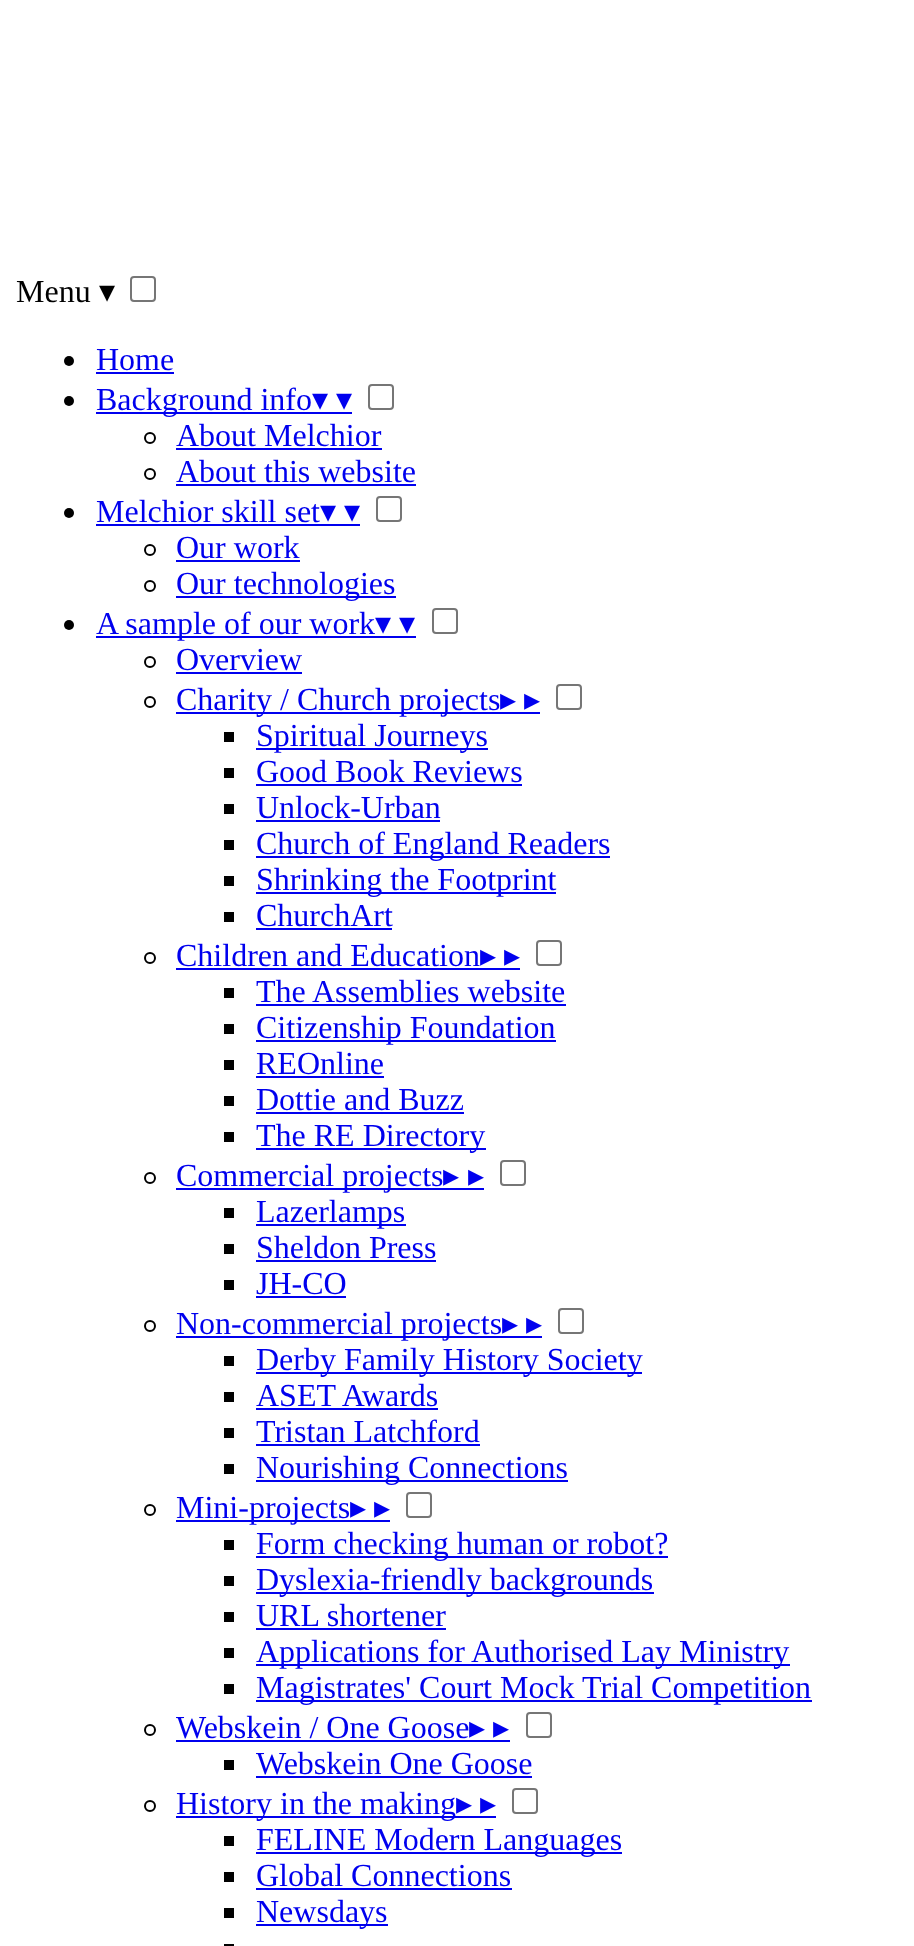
async function draw(canvas) {
  canvas.width = 914;
  canvas.height = 1946;
  const ctx = canvas.getContext('2d');
  ctx.miterLimit = 4;
  ctx.fontKerning = 'normal';
  function label(s, x, y, font, color) {
    ctx.font = font;
    ctx.fillStyle = color;
    ctx.fillText(s, x, y);
  }
  function rect(x, y, w, h, color) {
    ctx.fillStyle = color;
    ctx.fillRect(x, y, w, h);
  }

  rect(0, 0, 914, 1946, '#fff');
  label('Menu', 16, 302, '32px Liberation Serif', '#000');
  label('▾', 99, 302, '32px DejaVu Sans', '#000');
  ctx.beginPath();
  ctx.roundRect(131, 277, 24, 24, 3);
  ctx.strokeStyle = '#767676';
  ctx.lineWidth = 2;
  ctx.stroke();
  ctx.beginPath();
  ctx.arc(69, 361, 5, 0, 2 * Math.PI);
  ctx.fill();
  label('Home', 96, 370, '32px Liberation Serif', '#00e');
  rect(96, 372, 78, 2, '#00e');
  ctx.fillStyle = '#000';
  ctx.beginPath();
  ctx.arc(69, 401, 5, 0, 2 * Math.PI);
  ctx.fill();
  rect(96, 412, 256, 2, '#00e');
  label('Background info', 96, 410, '32px Liberation Serif', '#00e');
  label('▾', 312, 410, '32px DejaVu Sans', '#00e');
  label('▾', 336, 410, '32px DejaVu Sans', '#00e');
  ctx.beginPath();
  ctx.roundRect(369, 385, 24, 24, 3);
  ctx.stroke();
  ctx.beginPath();
  ctx.arc(150, 438, 5, 0, 2 * Math.PI);
  ctx.strokeStyle = '#000';
  ctx.stroke();
  label('About Melchior', 176, 446, '32px Liberation Serif', '#00e');
  rect(176, 448, 206, 2, '#00e');
  ctx.beginPath();
  ctx.arc(150, 474, 5, 0, 2 * Math.PI);
  ctx.stroke();
  label('About this website', 176, 482, '32px Liberation Serif', '#00e');
  rect(176, 484, 240, 2, '#00e');
  ctx.fillStyle = '#000';
  ctx.beginPath();
  ctx.arc(69, 513, 5, 0, 2 * Math.PI);
  ctx.fill();
  label('Melchior skill set', 96, 522, '32px Liberation Serif', '#00e');
  label('▾', 320, 522, '32px DejaVu Sans', '#00e');
  rect(96, 524, 264, 2, '#00e');
  label('▾', 344, 522, '32px DejaVu Sans', '#00e');
  ctx.beginPath();
  ctx.roundRect(377, 497, 24, 24, 3);
  ctx.strokeStyle = '#767676';
  ctx.stroke();
  ctx.beginPath();
  ctx.arc(150, 550, 5, 0, 2 * Math.PI);
  ctx.strokeStyle = '#000';
  ctx.stroke();
  label('Our work', 176, 558, '32px Liberation Serif', '#00e');
  rect(176, 560, 124, 2, '#00e');
  ctx.beginPath();
  ctx.arc(150, 586, 5, 0, 2 * Math.PI);
  ctx.stroke();
  rect(176, 596, 220, 2, '#00e');
  label('Our technologies', 176, 594, '32px Liberation Serif', '#00e');
  ctx.fillStyle = '#000';
  ctx.beginPath();
  ctx.arc(69, 625, 5, 0, 2 * Math.PI);
  ctx.fill();
  rect(96, 636, 320, 2, '#00e');
  label('A sample of our work', 96, 634, '32px Liberation Serif', '#00e');
  label('▾', 375, 634, '32px DejaVu Sans', '#00e');
  label('▾', 399, 634, '32px DejaVu Sans', '#00e');
  ctx.beginPath();
  ctx.roundRect(433, 609, 24, 24, 3);
  ctx.strokeStyle = '#767676';
  ctx.stroke();
  ctx.beginPath();
  ctx.arc(150, 662, 5, 0, 2 * Math.PI);
  ctx.strokeStyle = '#000';
  ctx.stroke();
  label('Overview', 176, 670, '32px Liberation Serif', '#00e');
  rect(176, 672, 126, 2, '#00e');
  ctx.beginPath();
  ctx.arc(150, 702, 5, 0, 2 * Math.PI);
  ctx.stroke();
  rect(176, 712, 364, 2, '#00e');
  label('Charity / Church projects', 176, 710, '32px Liberation Serif', '#00e');
  label('▸', 500, 710, '32px DejaVu Sans', '#00e');
  label('▸', 524, 710, '32px DejaVu Sans', '#00e');
  ctx.beginPath();
  ctx.roundRect(557, 685, 24, 24, 3);
  ctx.strokeStyle = '#767676';
  ctx.stroke();
  rect(224, 732, 10, 10, '#000');
  rect(256, 748, 232, 2, '#00e');
  label('Spiritual Journeys', 256, 746, '32px Liberation Serif', '#00e');
  rect(224, 768, 10, 10, '#000');
  label('Good Book Reviews', 256, 782, '32px Liberation Serif', '#00e');
  rect(256, 784, 266, 2, '#00e');
  rect(224, 804, 10, 10, '#000');
  label('Unlock-Urban', 256, 818, '32px Liberation Serif', '#00e');
  rect(256, 820, 184, 2, '#00e');
  rect(224, 840, 10, 10, '#000');
  rect(256, 856, 354, 2, '#00e');
  label('Church of England Readers', 256, 854, '32px Liberation Serif', '#00e');
  rect(224, 876, 10, 10, '#000');
  rect(256, 892, 300, 2, '#00e');
  label('Shrinking the Footprint', 256, 890, '32px Liberation Serif', '#00e');
  rect(224, 912, 10, 10, '#000');
  label('ChurchArt', 256, 926, '32px Liberation Serif', '#00e');
  rect(256, 928, 136, 2, '#00e');
  ctx.beginPath();
  ctx.arc(150, 958, 5, 0, 2 * Math.PI);
  ctx.strokeStyle = '#000';
  ctx.stroke();
  label('Children and Education', 176, 966, '32px Liberation Serif', '#00e');
  label('▸', 480, 966, '32px DejaVu Sans', '#00e');
  rect(176, 968, 344, 2, '#00e');
  label('▸', 504, 966, '32px DejaVu Sans', '#00e');
  ctx.beginPath();
  ctx.roundRect(537, 941, 24, 24, 3);
  ctx.strokeStyle = '#767676';
  ctx.stroke();
  rect(224, 988, 10, 10, '#000');
  label('The Assemblies website', 256, 1002, '32px Liberation Serif', '#00e');
  rect(256, 1004, 310, 2, '#00e');
  rect(224, 1024, 10, 10, '#000');
  rect(256, 1040, 300, 2, '#00e');
  label('Citizenship Foundation', 256, 1038, '32px Liberation Serif', '#00e');
  rect(224, 1060, 10, 10, '#000');
  label('REOnline', 256, 1074, '32px Liberation Serif', '#00e');
  rect(256, 1076, 128, 2, '#00e');
  rect(224, 1096, 10, 10, '#000');
  label('Dottie and Buzz', 256, 1110, '32px Liberation Serif', '#00e');
  rect(256, 1112, 208, 2, '#00e');
  rect(224, 1132, 10, 10, '#000');
  rect(256, 1148, 230, 2, '#00e');
  label('The RE Directory', 256, 1146, '32px Liberation Serif', '#00e');
  ctx.beginPath();
  ctx.arc(150, 1178, 5, 0, 2 * Math.PI);
  ctx.strokeStyle = '#000';
  ctx.stroke();
  rect(176, 1188, 308, 2, '#00e');
  label('Commercial projects', 176, 1186, '32px Liberation Serif', '#00e');
  label('▸', 443, 1186, '32px DejaVu Sans', '#00e');
  label('▸', 468, 1186, '32px DejaVu Sans', '#00e');
  ctx.beginPath();
  ctx.roundRect(501, 1161, 24, 24, 3);
  ctx.strokeStyle = '#767676';
  ctx.stroke();
  rect(224, 1208, 10, 10, '#000');
  rect(256, 1224, 150, 2, '#00e');
  label('Lazerlamps', 256, 1222, '32px Liberation Serif', '#00e');
  rect(224, 1244, 10, 10, '#000');
  label('Sheldon Press', 256, 1258, '32px Liberation Serif', '#00e');
  rect(256, 1260, 180, 2, '#00e');
  rect(224, 1280, 10, 10, '#000');
  label('JH-CO', 256, 1294, '32px Liberation Serif', '#00e');
  rect(256, 1296, 90, 2, '#00e');
  ctx.beginPath();
  ctx.arc(150, 1326, 5, 0, 2 * Math.PI);
  ctx.strokeStyle = '#000';
  ctx.stroke();
  rect(176, 1336, 366, 2, '#00e');
  label('Non-commercial projects', 176, 1334, '32px Liberation Serif', '#00e');
  label('▸', 502, 1334, '32px DejaVu Sans', '#00e');
  label('▸', 526, 1334, '32px DejaVu Sans', '#00e');
  ctx.beginPath();
  ctx.roundRect(559, 1309, 24, 24, 3);
  ctx.strokeStyle = '#767676';
  ctx.stroke();
  rect(224, 1356, 10, 10, '#000');
  rect(256, 1372, 386, 2, '#00e');
  label('Derby Family History Society', 256, 1370, '32px Liberation Serif', '#00e');
  rect(224, 1392, 10, 10, '#000');
  label('ASET Awards', 256, 1406, '32px Liberation Serif', '#00e');
  rect(256, 1408, 182, 2, '#00e');
  rect(224, 1428, 10, 10, '#000');
  label('Tristan Latchford', 256, 1442, '32px Liberation Serif', '#00e');
  rect(256, 1444, 224, 2, '#00e');
  rect(224, 1464, 10, 10, '#000');
  rect(256, 1480, 312, 2, '#00e');
  label('Nourishing Connections', 256, 1478, '32px Liberation Serif', '#00e');
  ctx.beginPath();
  ctx.arc(150, 1510, 5, 0, 2 * Math.PI);
  ctx.strokeStyle = '#000';
  ctx.stroke();
  rect(176, 1520, 214, 2, '#00e');
  label('Mini-projects', 176, 1518, '32px Liberation Serif', '#00e');
  label('▸', 350, 1518, '32px DejaVu Sans', '#00e');
  label('▸', 374, 1518, '32px DejaVu Sans', '#00e');
  ctx.beginPath();
  ctx.roundRect(407, 1493, 24, 24, 3);
  ctx.strokeStyle = '#767676';
  ctx.stroke();
  rect(224, 1540, 10, 10, '#000');
  rect(256, 1556, 412, 2, '#00e');
  label('Form checking human or robot?', 256, 1554, '32px Liberation Serif', '#00e');
  rect(224, 1576, 10, 10, '#000');
  rect(256, 1592, 398, 2, '#00e');
  label('Dyslexia-friendly backgrounds', 256, 1590, '32px Liberation Serif', '#00e');
  rect(224, 1612, 10, 10, '#000');
  label('URL shortener', 256, 1626, '32px Liberation Serif', '#00e');
  rect(256, 1628, 190, 2, '#00e');
  rect(224, 1648, 10, 10, '#000');
  rect(256, 1664, 534, 2, '#00e');
  label('Applications for Authorised Lay Ministry', 256, 1662, '32px Liberation Serif', '#00e');
  rect(224, 1684, 10, 10, '#000');
  rect(256, 1700, 556, 2, '#00e');
  label('Magistrates\' Court Mock Trial Competition', 256, 1698, '32px Liberation Serif', '#00e');
  ctx.beginPath();
  ctx.arc(150, 1730, 5, 0, 2 * Math.PI);
  ctx.strokeStyle = '#000';
  ctx.stroke();
  label('Webskein / One Goose', 176, 1738, '32px Liberation Serif', '#00e');
  label('▸', 469, 1738, '32px DejaVu Sans', '#00e');
  rect(176, 1740, 334, 2, '#00e');
  label('▸', 493, 1738, '32px DejaVu Sans', '#00e');
  ctx.beginPath();
  ctx.roundRect(527, 1713, 24, 24, 3);
  ctx.strokeStyle = '#767676';
  ctx.stroke();
  rect(224, 1760, 10, 10, '#000');
  label('Webskein One Goose', 256, 1774, '32px Liberation Serif', '#00e');
  rect(256, 1776, 276, 2, '#00e');
  ctx.beginPath();
  ctx.arc(150, 1806, 5, 0, 2 * Math.PI);
  ctx.strokeStyle = '#000';
  ctx.stroke();
  rect(176, 1816, 320, 2, '#00e');
  label('History in the making', 176, 1814, '32px Liberation Serif', '#00e');
  label('▸', 456, 1814, '32px DejaVu Sans', '#00e');
  label('▸', 480, 1814, '32px DejaVu Sans', '#00e');
  ctx.beginPath();
  ctx.roundRect(513, 1789, 24, 24, 3);
  ctx.strokeStyle = '#767676';
  ctx.stroke();
  rect(224, 1836, 10, 10, '#000');
  rect(256, 1852, 366, 2, '#00e');
  label('FELINE Modern Languages', 256, 1850, '32px Liberation Serif', '#00e');
  rect(224, 1872, 10, 10, '#000');
  label('Global Connections', 256, 1886, '32px Liberation Serif', '#00e');
  rect(256, 1888, 256, 2, '#00e');
  rect(224, 1908, 10, 10, '#000');
  rect(256, 1924, 132, 2, '#00e');
  label('Newsdays', 256, 1922, '32px Liberation Serif', '#00e');
  rect(224, 1944, 10, 2, '#000');
}

draw(document.querySelector('canvas'));
